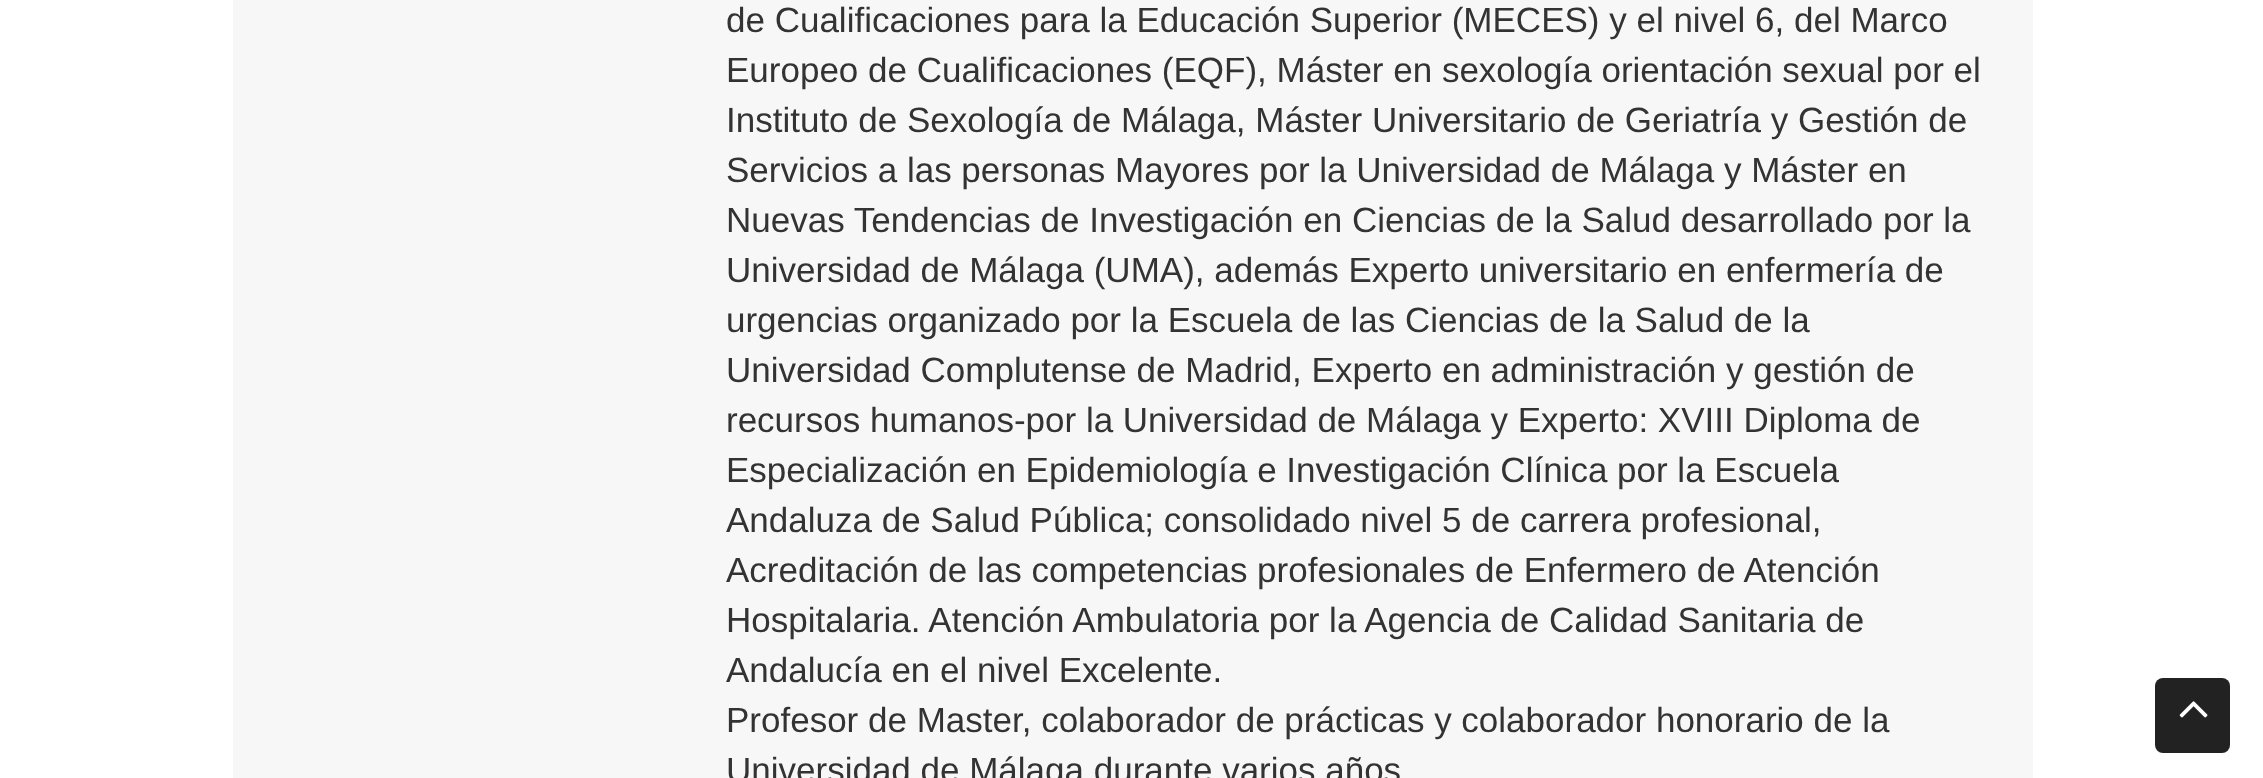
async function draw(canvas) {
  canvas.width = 2263;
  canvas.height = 778;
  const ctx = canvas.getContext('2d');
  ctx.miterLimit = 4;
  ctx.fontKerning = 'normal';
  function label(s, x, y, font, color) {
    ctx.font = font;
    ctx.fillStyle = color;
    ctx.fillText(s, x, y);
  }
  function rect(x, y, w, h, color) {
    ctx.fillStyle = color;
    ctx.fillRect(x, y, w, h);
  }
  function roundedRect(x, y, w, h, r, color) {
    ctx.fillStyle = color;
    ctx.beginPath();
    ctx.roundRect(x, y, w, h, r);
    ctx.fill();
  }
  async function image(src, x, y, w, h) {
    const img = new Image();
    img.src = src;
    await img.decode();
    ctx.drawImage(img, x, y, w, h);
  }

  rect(0, 0, 2263, 778, '#fff');
  rect(233, 0, 1800, 778, '#f7f7f7');
  label('de Cualificaciones para la Educación Superior (MECES) y el nivel 6, del Marco', 726, 32, '35px Liberation Sans', '#333');
  label('Europeo de Cualificaciones (EQF), Máster en sexología orientación sexual por el', 726, 82, '35px Liberation Sans', '#333');
  label('Instituto de Sexología de Málaga, Máster Universitario de Geriatría y Gestión de', 726, 132, '35px Liberation Sans', '#333');
  label('Servicios a las personas Mayores por la Universidad de Málaga y Máster en', 726, 182, '35px Liberation Sans', '#333');
  label('Nuevas Tendencias de Investigación en Ciencias de la Salud desarrollado por la', 726, 232, '35px Liberation Sans', '#333');
  label('Universidad de Málaga (UMA), además Experto universitario en enfermería de', 726, 282, '35px Liberation Sans', '#333');
  label('urgencias organizado por la Escuela de las Ciencias de la Salud de la', 726, 332, '35px Liberation Sans', '#333');
  label('Universidad Complutense de Madrid, Experto en administración y gestión de', 726, 382, '35px Liberation Sans', '#333');
  label('recursos humanos-por la Universidad de Málaga y Experto: XVIII Diploma de', 726, 432, '35px Liberation Sans', '#333');
  label('Especialización en Epidemiología e Investigación Clínica por la Escuela', 726, 482, '35px Liberation Sans', '#333');
  label('Andaluza de Salud Pública; consolidado nivel 5 de carrera profesional,', 726, 532, '35px Liberation Sans', '#333');
  label('Acreditación de las competencias profesionales de Enfermero de Atención', 726, 582, '35px Liberation Sans', '#333');
  label('Hospitalaria. Atención Ambulatoria por la Agencia de Calidad Sanitaria de', 726, 632, '35px Liberation Sans', '#333');
  label('Andalucía en el nivel Excelente.', 726, 682, '35px Liberation Sans', '#333');
  label('Profesor de Master, colaborador de prácticas y colaborador honorario de la', 726, 732, '35px Liberation Sans', '#333');
  label('Universidad de Málaga durante varios años', 726, 782, '35px Liberation Sans', '#333');
  roundedRect(2155, 678, 75, 75, 8, '#222');
  await image('assets/img1.png', 2179, 701, 29, 17);
}

draw(document.querySelector('canvas'));
